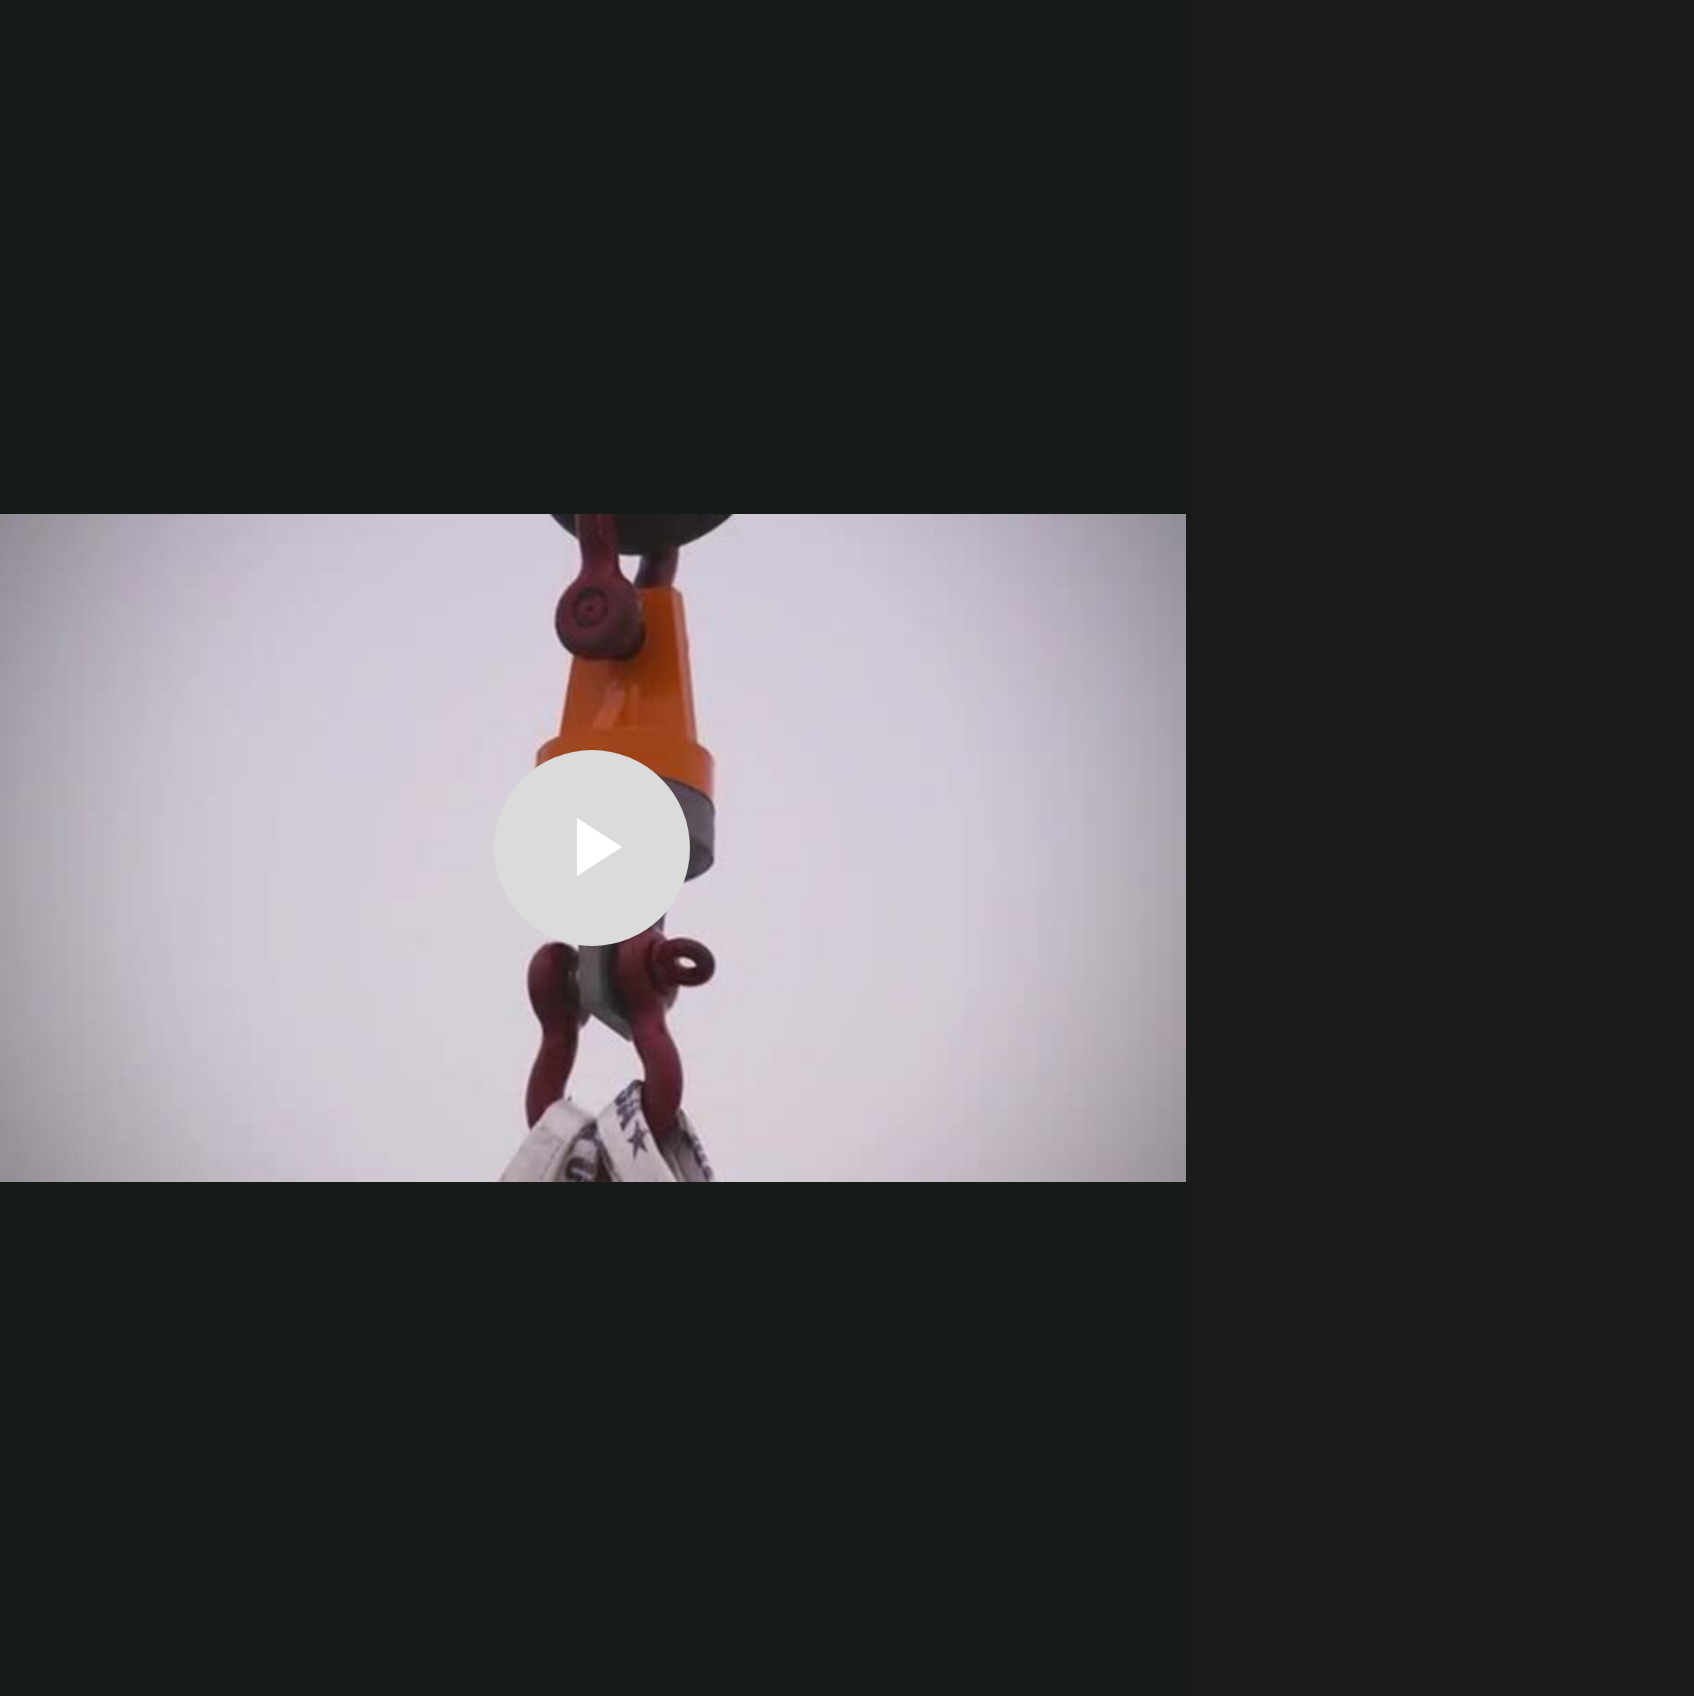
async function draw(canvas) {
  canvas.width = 1694;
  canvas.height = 1696;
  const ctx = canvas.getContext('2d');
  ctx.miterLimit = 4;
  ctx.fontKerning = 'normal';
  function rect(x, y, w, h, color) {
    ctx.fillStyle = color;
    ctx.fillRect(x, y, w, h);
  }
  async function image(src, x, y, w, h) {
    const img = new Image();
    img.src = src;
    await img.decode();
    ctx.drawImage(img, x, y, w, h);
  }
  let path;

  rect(0, 0, 1694, 1696, '#151b17');
  await image('assets/img1.png', 0, 514, 1186, 668);
  ctx.fillStyle = '#dbdbdb';
  ctx.beginPath();
  ctx.arc(592, 848, 98, 0, 2 * Math.PI);
  ctx.fill();
  ctx.fillStyle = '#fff';
  path = new Path2D('M577 818V876L622 847Z');
  ctx.fill(path);
  rect(1186, 0, 508, 1696, '#1a1a1a');
}

draw(document.querySelector('canvas'));
